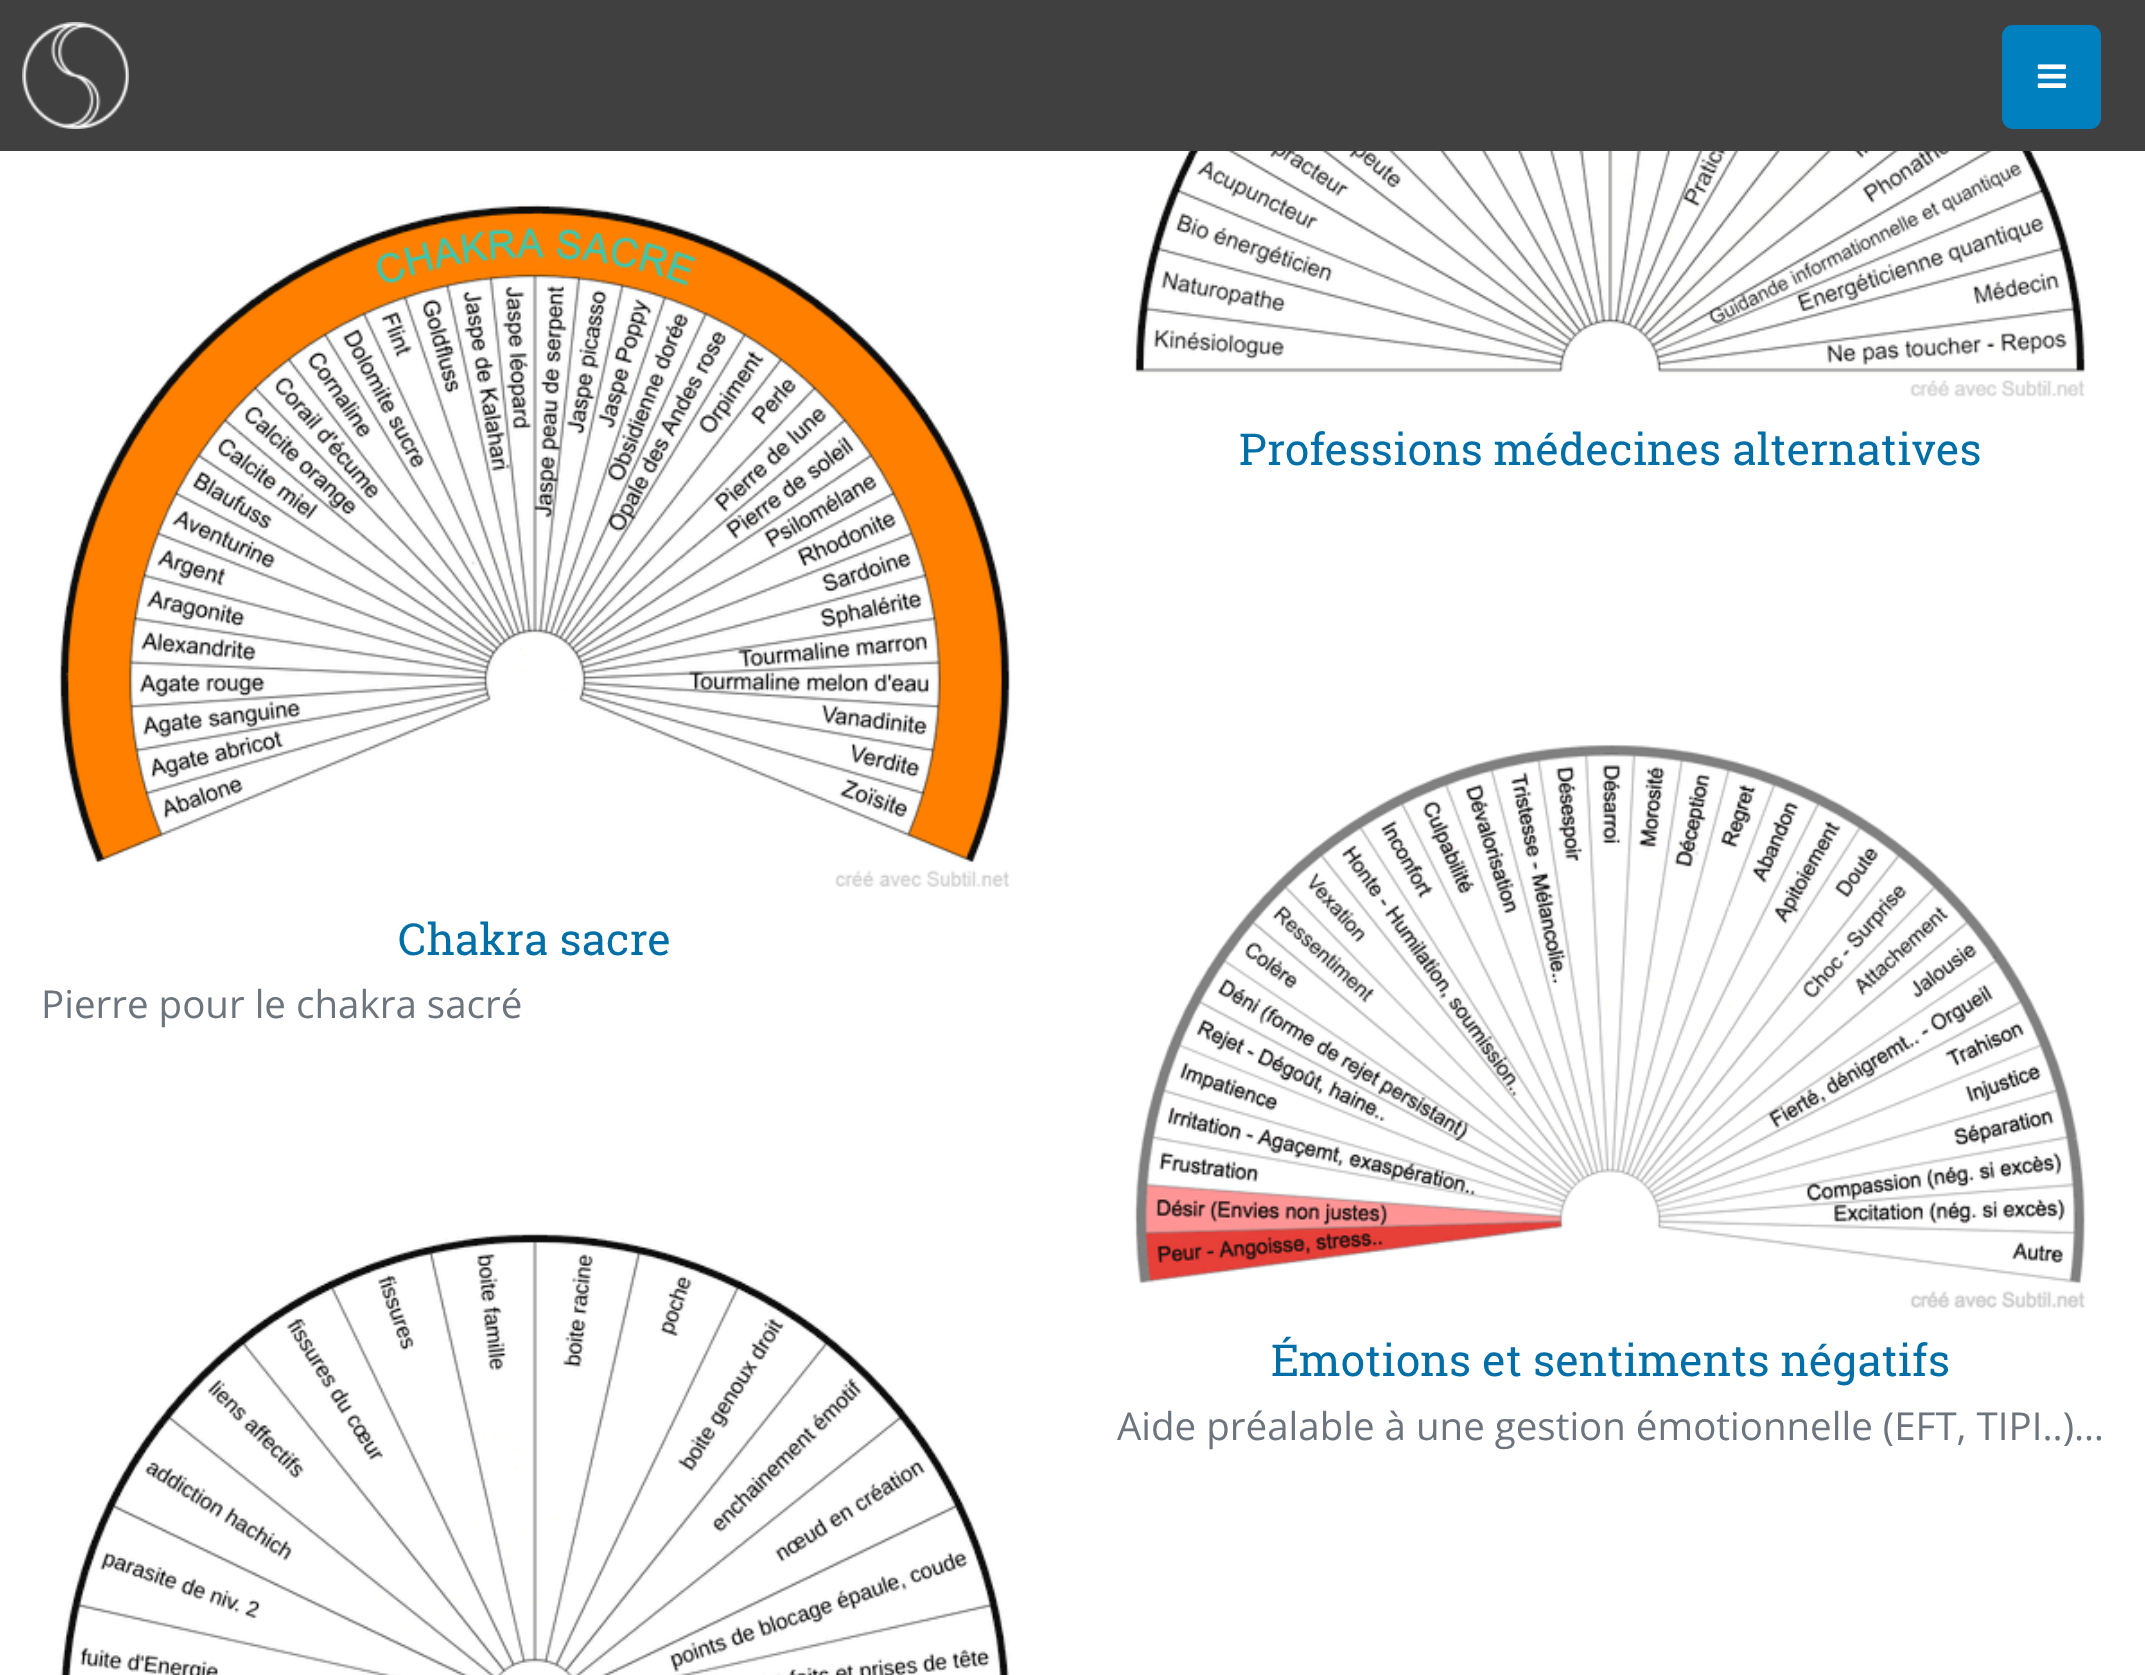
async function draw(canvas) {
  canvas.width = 2145;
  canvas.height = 1675;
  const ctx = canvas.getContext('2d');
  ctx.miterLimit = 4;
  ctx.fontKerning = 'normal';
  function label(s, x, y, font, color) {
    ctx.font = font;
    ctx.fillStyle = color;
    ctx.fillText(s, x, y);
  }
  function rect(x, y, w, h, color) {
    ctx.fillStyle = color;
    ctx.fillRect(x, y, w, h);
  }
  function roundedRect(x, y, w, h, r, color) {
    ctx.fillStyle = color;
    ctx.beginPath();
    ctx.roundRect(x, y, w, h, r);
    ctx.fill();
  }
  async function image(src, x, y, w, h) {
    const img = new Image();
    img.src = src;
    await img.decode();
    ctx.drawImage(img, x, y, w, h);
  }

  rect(0, 0, 2145, 1675, '#fff');
  rect(0, 0, 2145, 151, '#404040');
  await image('assets/img1.png', 22, 22, 107, 107);
  roundedRect(2002, 25, 99, 104, 11, '#0180c0');
  await image('assets/img2.png', 2037, 64, 30, 24);
  await image('assets/img3.png', 1133, 151, 954, 246);
  label('Professions médecines alternatives', 1239, 465, '44px Roboto Slab', '#006fa8');
  await image('assets/img4.png', 59, 204, 952, 683);
  label('Chakra sacre', 398, 955, '44px Roboto Slab', '#006fa8');
  label('Pierre pour le chakra sacré', 41, 1018, '38.5px Open Sans', '#6c757d');
  await image('assets/img5.png', 58, 1232, 952, 443);
  await image('assets/img6.png', 1134, 744, 952, 565);
  label('Émotions et sentiments négatifs', 1271, 1376, '44px Roboto Slab', '#006fa8');
  label('Aide préalable à une gestion émotionnelle (EFT, TIPI..)…', 1117, 1440, '38.5px Open Sans', '#6c757d');
}

draw(document.querySelector('canvas'));
